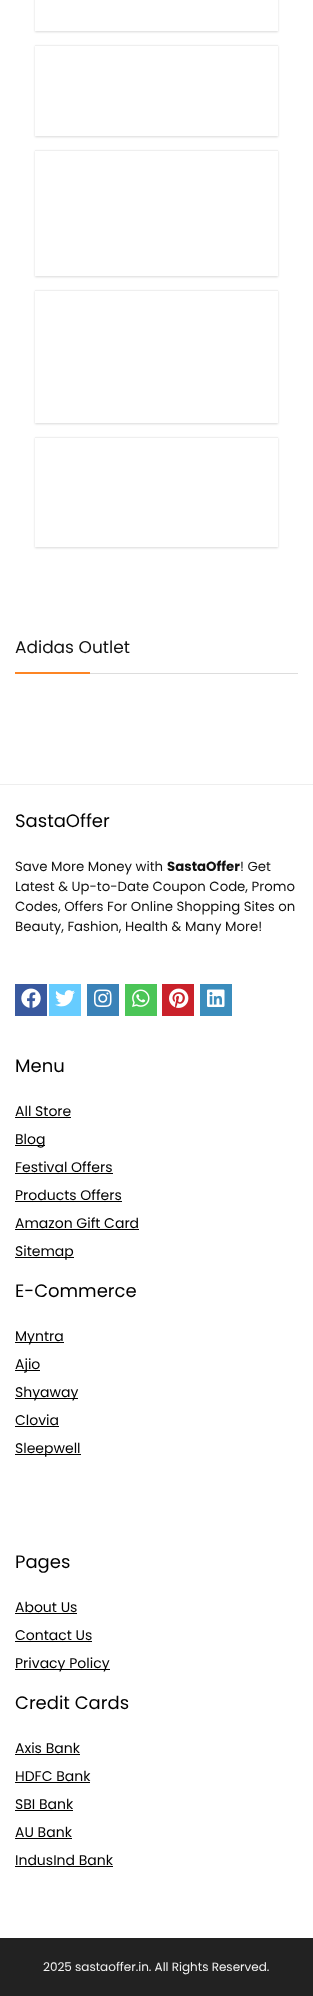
async function draw(canvas) {
  canvas.width = 313;
  canvas.height = 1996;
  const ctx = canvas.getContext('2d');
  ctx.miterLimit = 4;
  ctx.fontKerning = 'normal';
  function label(s, x, y, font, color) {
    ctx.font = font;
    ctx.fillStyle = color;
    ctx.fillText(s, x, y);
  }
  function rect(x, y, w, h, color) {
    ctx.fillStyle = color;
    ctx.fillRect(x, y, w, h);
  }
  async function image(src, x, y, w, h) {
    const img = new Image();
    img.src = src;
    await img.decode();
    ctx.drawImage(img, x, y, w, h);
  }
  let path;

  rect(0, 0, 313, 1996, '#fff');
  ctx.save();
  path = new Path2D('M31 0H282V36H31ZM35-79H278V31H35Z');
  ctx.clip(path, 'evenodd');
  ctx.fillStyle = '#00000026';
  ctx.filter = 'blur(1px)';
  ctx.beginPath();
  ctx.rect(35, -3, 243, 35);
  ctx.fill();
  ctx.filter = 'none';
  ctx.restore();
  ctx.save();
  path = new Path2D('M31 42H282V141H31ZM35 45H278V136H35Z');
  ctx.clip(path, 'evenodd');
  ctx.fillStyle = '#00000026';
  ctx.filter = 'blur(1px)';
  ctx.beginPath();
  ctx.rect(35, 46, 243, 91);
  ctx.fill();
  ctx.filter = 'none';
  ctx.restore();
  rect(35, 45, 243, 1, '#efefef');
  ctx.save();
  path = new Path2D('M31 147H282V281H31ZM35 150H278V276H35Z');
  ctx.clip(path, 'evenodd');
  ctx.fillStyle = '#00000026';
  ctx.filter = 'blur(1px)';
  ctx.beginPath();
  ctx.rect(35, 151, 243, 126);
  ctx.fill();
  ctx.filter = 'none';
  ctx.restore();
  rect(35, 150, 243, 1, '#efefef');
  ctx.save();
  path = new Path2D('M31 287H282V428H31ZM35 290H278V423H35Z');
  ctx.clip(path, 'evenodd');
  ctx.fillStyle = '#00000026';
  ctx.filter = 'blur(1px)';
  ctx.beginPath();
  ctx.rect(35, 291, 243, 133);
  ctx.fill();
  ctx.filter = 'none';
  ctx.restore();
  rect(35, 290, 243, 1, '#efefef');
  ctx.save();
  path = new Path2D('M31 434H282V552H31ZM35 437H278V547H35Z');
  ctx.clip(path, 'evenodd');
  ctx.fillStyle = '#00000026';
  ctx.filter = 'blur(1px)';
  ctx.beginPath();
  ctx.rect(35, 438, 243, 110);
  ctx.fill();
  ctx.filter = 'none';
  ctx.restore();
  rect(35, 437, 243, 1, '#efefef');
  rect(90, 673, 208, 1, '#ddd');
  label('Adidas Outlet', 15, 653, '17px Poppins', '#111');
  rect(15, 672, 75, 2, '#fd8524');
  rect(0, 784, 313, 1, '#eee');
  label('SastaOffer', 15, 827, '18px Poppins', '#000');
  label('Save More Money with', 15, 871, '13.3px Poppins', '#111');
  label('SastaOffer', 167, 871, 'bold 13.3px Poppins', '#111');
  label('! Get', 240, 871, '13.3px Poppins', '#111');
  label('Latest & Up-to-Date Coupon Code, Promo', 15, 891, '13.3px Poppins', '#111');
  label('Codes, Offers For Online Shopping Sites on', 15, 911, '13.3px Poppins', '#111');
  label('Beauty, Fashion, Health & Many More!', 15, 931, '13.3px Poppins', '#111');
  rect(15, 984, 32, 32, '#39599f');
  await image('assets/img1.png', 21, 988, 20, 20);
  rect(49, 984, 32, 32, '#6cf');
  await image('assets/img2.png', 55, 990, 20, 17);
  rect(87, 984, 32, 32, '#3a82b8');
  await image('assets/img3.png', 94, 989, 18, 18);
  rect(125, 984, 32, 32, '#4bc557');
  await image('assets/img4.png', 132, 989, 18, 18);
  rect(162, 984, 32, 32, '#ca212a');
  await image('assets/img5.png', 169, 988, 20, 20);
  rect(200, 984, 32, 32, '#3b8dbd');
  await image('assets/img6.png', 207, 989, 18, 18);
  label('Menu', 15, 1072, '18px Poppins', '#000');
  label('All Store', 15, 1116, '14px Poppins', '#000');
  rect(15, 1117, 56, 1, '#000');
  rect(15, 1145, 30, 1, '#000');
  label('Blog', 15, 1144, '14px Poppins', '#000');
  label('Festival Offers', 15, 1172, '14px Poppins', '#000');
  rect(15, 1173, 98, 1, '#000');
  label('Products Offers', 15, 1200, '14px Poppins', '#000');
  rect(15, 1201, 107, 1, '#000');
  label('Amazon Gift Card', 15, 1228, '14px Poppins', '#000');
  rect(15, 1229, 124, 1, '#000');
  rect(15, 1257, 59, 1, '#000');
  label('Sitemap', 15, 1256, '14px Poppins', '#000');
  label('E-Commerce', 15, 1297, '18px Poppins', '#000');
  rect(15, 1342, 49, 1, '#000');
  label('Myntra', 15, 1341, '14px Poppins', '#000');
  rect(15, 1370, 25, 1, '#000');
  label('Ajio', 15, 1369, '14px Poppins', '#000');
  rect(15, 1398, 63, 1, '#000');
  label('Shyaway', 15, 1397, '14px Poppins', '#000');
  label('Clovia', 15, 1425, '14px Poppins', '#000');
  rect(15, 1426, 44, 1, '#000');
  rect(15, 1454, 66, 1, '#000');
  label('Sleepwell', 15, 1453, '14px Poppins', '#000');
  label('Pages', 15, 1568, '18px Poppins', '#000');
  label('About Us', 15, 1612, '14px Poppins', '#000');
  rect(15, 1613, 62, 1, '#000');
  label('Contact Us', 15, 1640, '14px Poppins', '#000');
  rect(15, 1641, 77, 1, '#000');
  rect(15, 1669, 95, 1, '#000');
  label('Privacy Policy', 15, 1668, '14px Poppins', '#000');
  label('Credit Cards', 15, 1709, '18px Poppins', '#000');
  label('Axis Bank', 15, 1753, '14px Poppins', '#000');
  rect(15, 1754, 65, 1, '#000');
  label('HDFC Bank', 15, 1781, '14px Poppins', '#000');
  rect(15, 1782, 75, 1, '#000');
  label('SBI Bank', 15, 1809, '14px Poppins', '#000');
  rect(15, 1810, 58, 1, '#000');
  label('AU Bank', 15, 1837, '14px Poppins', '#000');
  rect(15, 1838, 57, 1, '#000');
  label('IndusInd Bank', 15, 1865, '14px Poppins', '#000');
  rect(15, 1866, 98, 1, '#000');
  rect(0, 1938, 313, 58, '#222');
  label('2025 sastaoffer.in. All Rights Reserved.', 43, 1971, '12px Poppins', '#f1f1f1');
}

draw(document.querySelector('canvas'));
